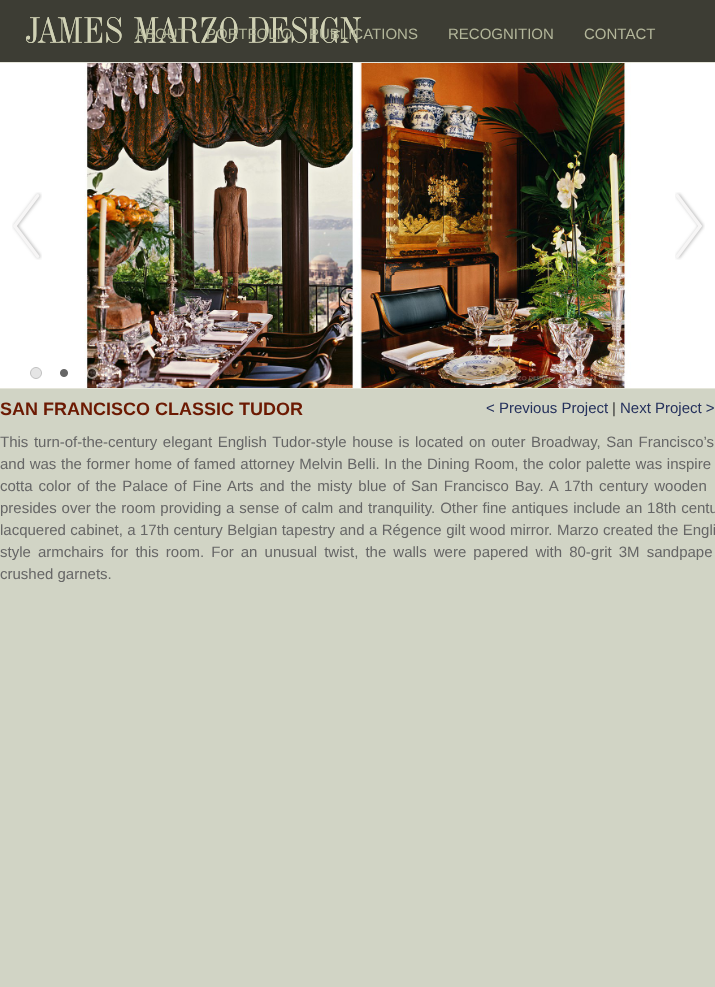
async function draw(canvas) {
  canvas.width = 715;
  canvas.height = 987;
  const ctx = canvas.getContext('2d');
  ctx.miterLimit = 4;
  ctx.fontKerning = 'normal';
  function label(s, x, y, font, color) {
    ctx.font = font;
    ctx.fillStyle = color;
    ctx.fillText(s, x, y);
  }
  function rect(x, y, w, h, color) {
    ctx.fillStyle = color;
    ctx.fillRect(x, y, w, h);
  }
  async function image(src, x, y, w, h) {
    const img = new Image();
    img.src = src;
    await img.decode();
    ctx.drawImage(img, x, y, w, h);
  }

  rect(0, 0, 715, 987, '#d1d4c5');
  rect(0, 0, 715, 62, '#3d3d34');
  await image('assets/img1.png', 26, 17, 335, 26);
  label('ABOUT', 135, 39, '15px Liberation Sans', '#b3b69a');
  label('PORTFOLIO', 206, 39, '15px Liberation Sans', '#b3b69a');
  label('PUBLICATIONS', 309, 39, '15px Liberation Sans', '#b3b69a');
  label('RECOGNITION', 448, 39, '15px Liberation Sans', '#b3b69a');
  label('CONTACT', 584, 39, '15px Liberation Sans', '#b3b69a');
  ctx.strokeStyle = '#e5e5da';
  ctx.strokeRect(-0.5, 62.5, 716, 326);
  await image('assets/img2.png', 0, 63, 715, 325);
  await image('assets/img3.png', 12, 192, 30, 68);
  await image('assets/img4.png', 675, 192, 30, 68);
  await image('assets/img5.png', 30, 367, 12, 12);
  await image('assets/img6.png', 60, 369, 8, 8);
  await image('assets/img7.png', 87, 367, 11, 12);
  label('SAN FRANCISCO CLASSIC TUDOR', 0, 415, 'bold 18px Liberation Sans', '#6c1a03');
  ctx.wordSpacing = '1.4px';
  label('This turn-of-the-century elegant English Tudor-style house is located on outer Broadway, San Francisco’s', 0, 447, '15px Liberation Sans', '#666');
  ctx.wordSpacing = '0.5px';
  label('and was the former home of famed attorney Melvin Belli. In the Dining Room, the color palette was inspire', 0, 469, '15px Liberation Sans', '#666');
  ctx.wordSpacing = '1.8px';
  label('cotta color of the Palace of Fine Arts and the misty blue of San Francisco Bay. A 17th century wooden', 0, 491, '15px Liberation Sans', '#666');
  ctx.wordSpacing = '0.7px';
  label('presides over the room providing a sense of calm and tranquility. Other fine antiques include an 18th centu', 0, 513, '15px Liberation Sans', '#666');
  ctx.wordSpacing = '0.25px';
  label('lacquered cabinet, a 17th century Belgian tapestry and a Régence gilt wood mirror. Marzo created the Engli', 0, 535, '15px Liberation Sans', '#666');
  ctx.wordSpacing = '2.9px';
  label('style armchairs for this room. For an unusual twist, the walls were papered with 80-grit 3M sandpape', 0, 557, '15px Liberation Sans', '#666');
  ctx.wordSpacing = '0px';
  label('crushed garnets.', 0, 579, '15px Liberation Sans', '#666');
  label('< Previous Project', 486, 413, '15px Liberation Sans', '#25315c');
  label('|', 612, 413, '15px Liberation Sans', '#333');
  label('Next Project >', 620, 413, '15px Liberation Sans', '#25315c');
}

draw(document.querySelector('canvas'));
